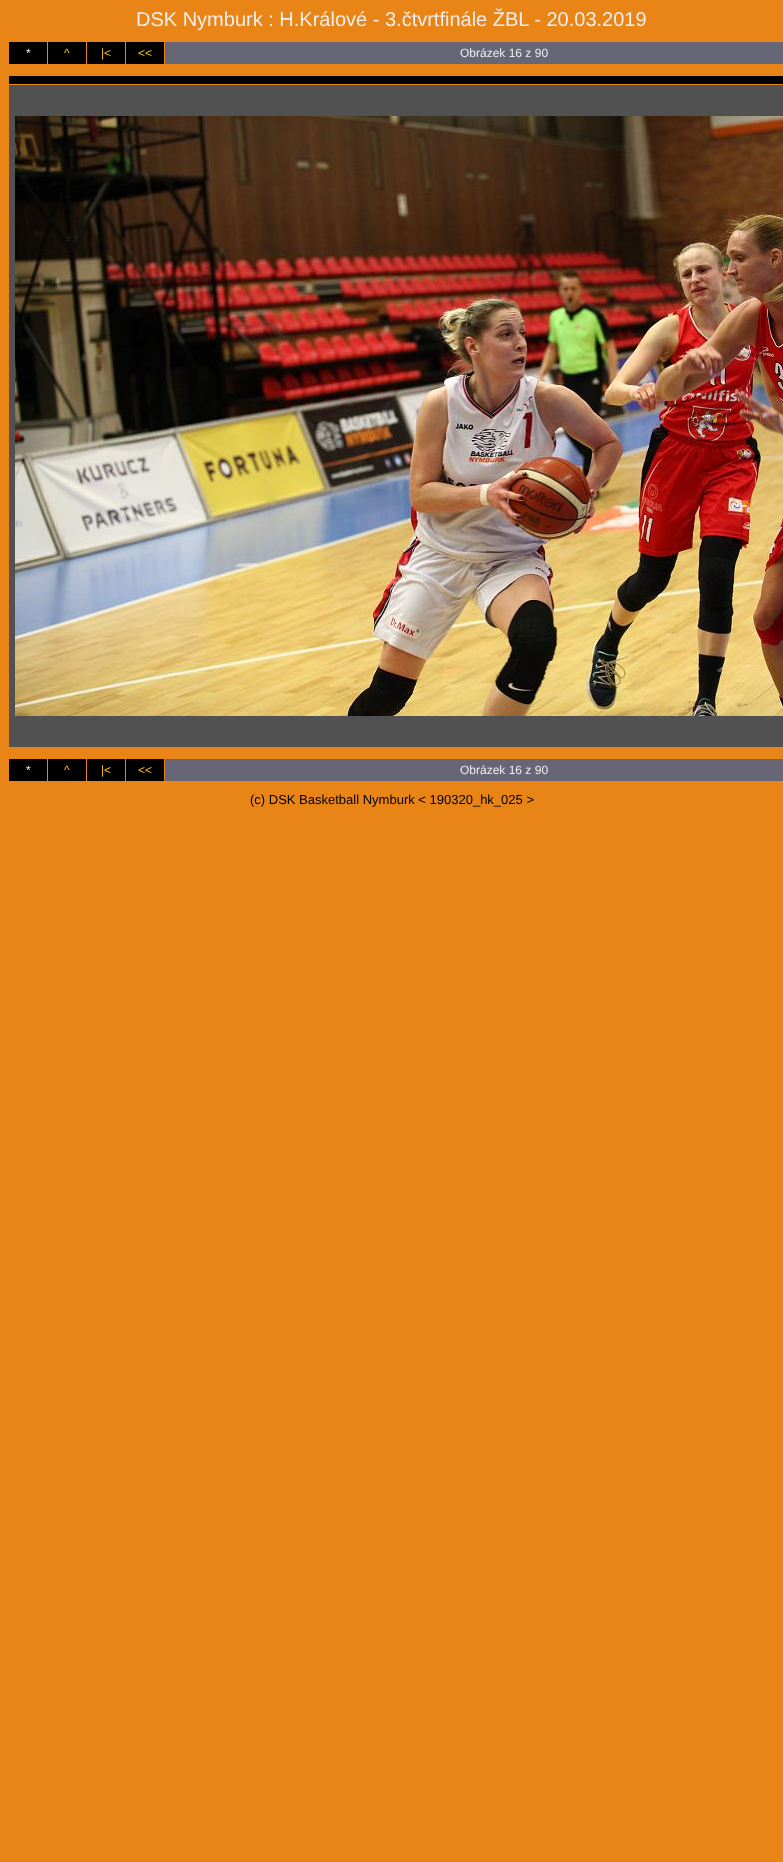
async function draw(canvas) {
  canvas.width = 783;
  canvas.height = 1862;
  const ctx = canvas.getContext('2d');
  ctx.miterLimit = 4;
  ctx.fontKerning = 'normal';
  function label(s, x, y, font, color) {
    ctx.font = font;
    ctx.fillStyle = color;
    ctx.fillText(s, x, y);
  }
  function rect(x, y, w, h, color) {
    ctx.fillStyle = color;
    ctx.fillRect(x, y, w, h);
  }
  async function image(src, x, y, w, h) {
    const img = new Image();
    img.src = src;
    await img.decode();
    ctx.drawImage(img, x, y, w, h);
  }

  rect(0, 0, 783, 1862, '#e98516');
  label('DSK Nymburk : H.Králové - 3.čtvrtfinále ŽBL - 20.03.2019', 136, 26, '20px Liberation Sans', '#eee');
  rect(9, 42, 38, 22, '#000');
  label('*', 26, 57, '12px Liberation Sans', '#eee');
  rect(48, 42, 38, 22, '#000');
  label('^', 64, 57, '12px Liberation Sans', '#ffc513');
  rect(87, 42, 38, 22, '#000');
  label('|<', 101, 57, '12px Liberation Sans', '#ffc513');
  rect(126, 42, 38, 22, '#000');
  label('<<', 138, 57, '12px Liberation Sans', '#ffc513');
  rect(165, 42, 618, 22, '#667');
  label('Obrázek 16 z 90', 460, 57, '12px Liberation Sans', '#eee');
  rect(9, 76, 774, 8, '#000');
  rect(9, 85, 774, 662, '#515151');
  await image('assets/img1.png', 15, 116, 768, 600);
  rect(9, 759, 38, 22, '#000');
  label('*', 26, 774, '12px Liberation Sans', '#eee');
  rect(48, 759, 38, 22, '#000');
  label('^', 64, 774, '12px Liberation Sans', '#ffc513');
  rect(87, 759, 38, 22, '#000');
  label('|<', 101, 774, '12px Liberation Sans', '#ffc513');
  rect(126, 759, 38, 22, '#000');
  label('<<', 138, 774, '12px Liberation Sans', '#ffc513');
  rect(165, 759, 618, 22, '#667');
  label('Obrázek 16 z 90', 460, 774, '12px Liberation Sans', '#eee');
  label('(c) DSK Basketball Nymburk < 190320_hk_025 >', 250, 804, '13px Liberation Sans', '#000');
}

draw(document.querySelector('canvas'));
